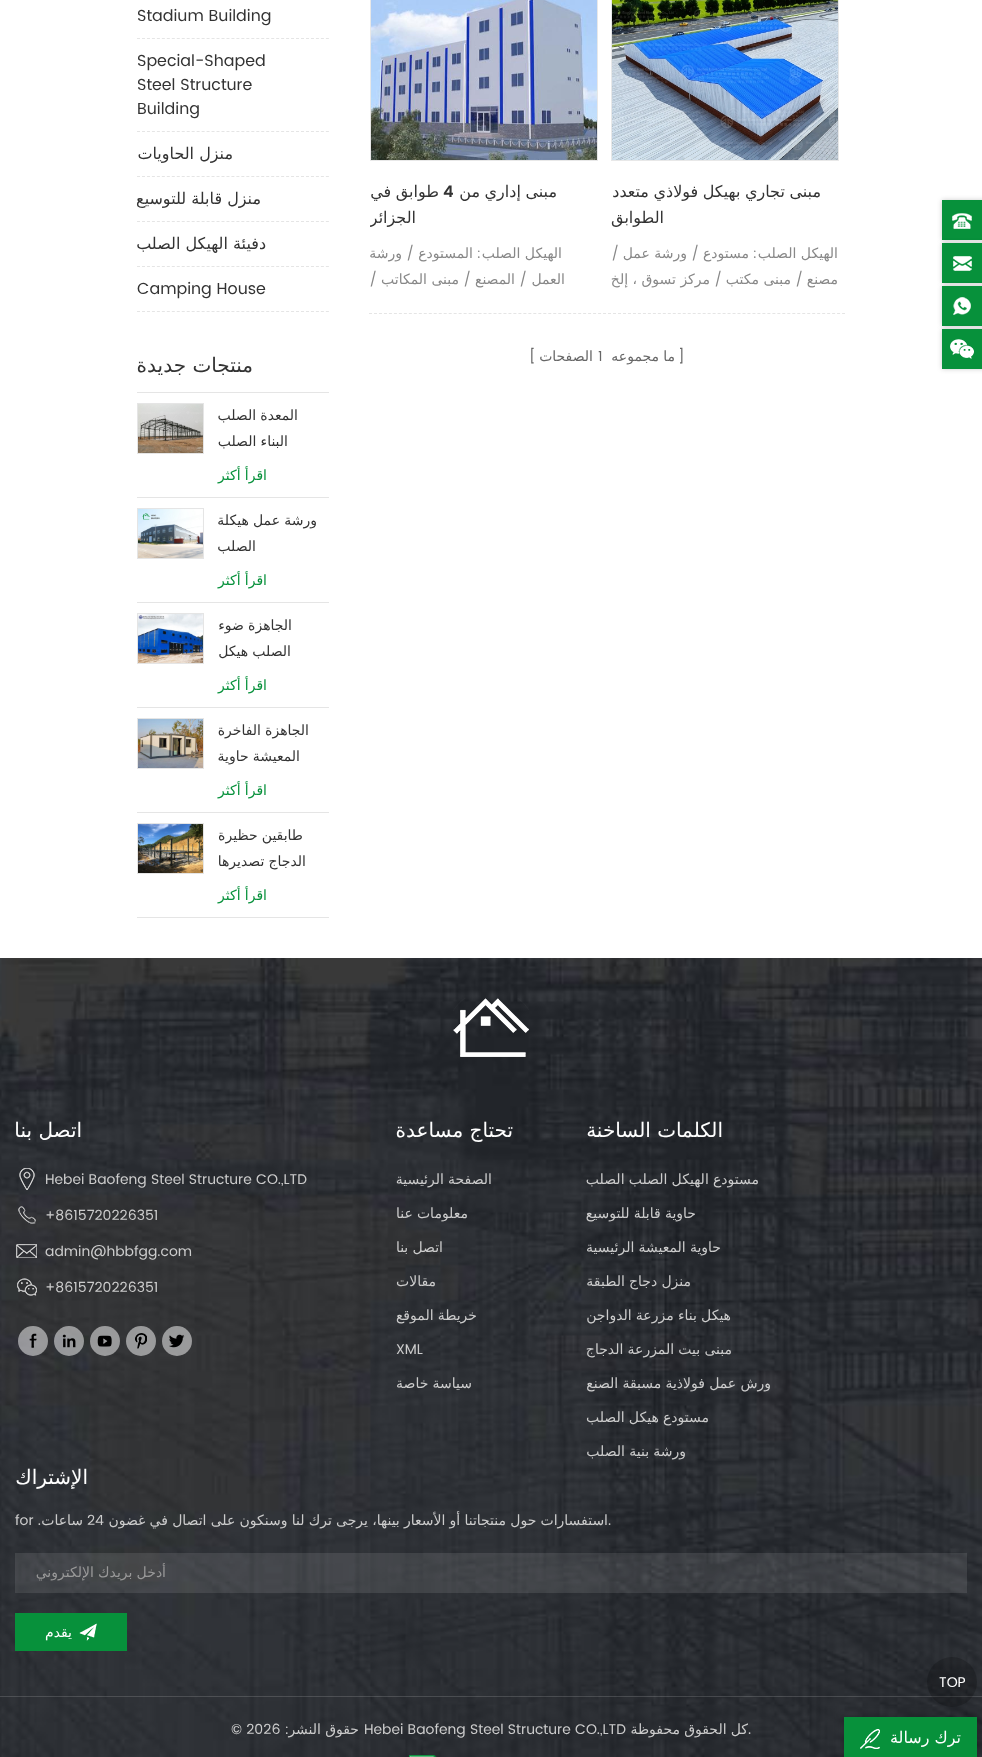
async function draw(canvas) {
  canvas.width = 982;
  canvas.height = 1757;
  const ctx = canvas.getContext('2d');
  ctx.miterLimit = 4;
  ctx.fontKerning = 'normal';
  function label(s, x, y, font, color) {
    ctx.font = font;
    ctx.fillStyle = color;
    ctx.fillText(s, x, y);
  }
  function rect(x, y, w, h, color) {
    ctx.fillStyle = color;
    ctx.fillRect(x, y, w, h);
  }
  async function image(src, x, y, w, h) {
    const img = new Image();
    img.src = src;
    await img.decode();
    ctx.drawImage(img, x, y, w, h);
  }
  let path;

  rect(0, 0, 982, 1757, '#fff');
  ctx.fillStyle = '#00000033';
  ctx.filter = 'blur(2.5px)';
  ctx.beginPath();
  ctx.rect(942, 200, 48, 40);
  ctx.fill();
  ctx.filter = 'none';
  rect(942, 200, 40, 40, '#07913b');
  await image('assets/img1.png', 952, 213, 20, 16);
  ctx.fillStyle = '#00000033';
  ctx.filter = 'blur(2.5px)';
  ctx.beginPath();
  ctx.rect(942, 243, 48, 40);
  ctx.fill();
  ctx.filter = 'none';
  rect(942, 243, 40, 40, '#07913b');
  await image('assets/img2.png', 953, 256, 19, 15);
  ctx.fillStyle = '#00000033';
  ctx.filter = 'blur(2.5px)';
  ctx.beginPath();
  ctx.rect(942, 286, 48, 40);
  ctx.fill();
  ctx.filter = 'none';
  rect(942, 286, 40, 40, '#07913b');
  await image('assets/img3.png', 953, 297, 18, 18);
  ctx.fillStyle = '#00000033';
  ctx.filter = 'blur(2.5px)';
  ctx.beginPath();
  ctx.rect(942, 329, 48, 40);
  ctx.fill();
  ctx.filter = 'none';
  rect(942, 329, 40, 40, '#07913b');
  await image('assets/img4.png', 950, 339, 24, 20);
  ctx.strokeStyle = '#e8e8e8';
  ctx.strokeRect(611.5, -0.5, 227, 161);
  await image('assets/img5.png', 612, 0, 226, 160);
  ctx.wordSpacing = '-0.5px';
  ctx.direction = 'rtl';
  label('مبنى تجاري بهيكل فولاذي متعدد', 821, 197, '16px DejaVu Sans', '#333');
  ctx.wordSpacing = '0px';
  label('الطوابق', 664, 223, '16px DejaVu Sans', '#333');
  label('الهيكل الصلب', 838, 258, '14px DejaVu Sans', '#888');
  label(':', 757, 258, '14px Poppins', '#888');
  label('مستودع', 749, 258, '14px DejaVu Sans', '#888');
  label('/', 699, 258, '14px Poppins', '#888');
  label('ورشة عمل', 687, 258, '14px DejaVu Sans', '#888');
  label('/', 619, 258, '14px Poppins', '#888');
  label('مصنع', 838, 284, '14px DejaVu Sans', '#888');
  label('/', 803, 284, '14px Poppins', '#888');
  label('مبنى مكتب', 791, 284, '14px DejaVu Sans', '#888');
  label('/', 722, 284, '14px Poppins', '#888');
  label('مركز تسوق ، إلخ', 710, 284, '14px DejaVu Sans', '#888');
  ctx.strokeRect(370.5, -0.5, 227, 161);
  await image('assets/img6.png', 371, 0, 226, 160);
  ctx.wordSpacing = '-0.5px';
  label('مبنى إداري من', 557, 197, '16px DejaVu Sans', '#333');
  ctx.wordSpacing = '0px';
  ctx.direction = 'ltr';
  label('4', 443, 197, '600 16px Poppins', '#333');
  ctx.wordSpacing = '-0.5px';
  ctx.direction = 'rtl';
  label('طوابق في', 439, 197, '16px DejaVu Sans', '#333');
  ctx.save();
  ctx.beginPath();
  ctx.rect(370, 179, 228, 52);
  ctx.clip();
  ctx.wordSpacing = '0px';
  label('الجزائر', 416, 223, '16px DejaVu Sans', '#333');
  ctx.restore();
  ctx.wordSpacing = '0px';
  label('الهيكل الصلب', 562, 258, '14px DejaVu Sans', '#888');
  label(':', 481, 258, '14px Poppins', '#888');
  label('المستودع', 473, 258, '14px DejaVu Sans', '#888');
  label('/', 414, 258, '14px Poppins', '#888');
  label('ورشة', 402, 258, '14px DejaVu Sans', '#888');
  label('العمل', 565, 284, '14px DejaVu Sans', '#888');
  label('/', 527, 284, '14px Poppins', '#888');
  label('المصنع', 515, 284, '14px DejaVu Sans', '#888');
  label('/', 471, 284, '14px Poppins', '#888');
  label('مبنى المكاتب', 459, 284, '14px DejaVu Sans', '#888');
  label('/', 377, 284, '14px Poppins', '#888');
  path = new Path2D('M369 313.5H845');
  ctx.strokeStyle = '#e5e5e5';
  ctx.setLineDash([3, 1.98]);
  ctx.stroke(path);
  ctx.direction = 'ltr';
  label(']', 678, 361, '14px Poppins', '#666');
  ctx.wordSpacing = '-0.25px';
  ctx.direction = 'rtl';
  label('ما مجموعه', 675, 361, '14px DejaVu Sans', '#666');
  ctx.wordSpacing = '0px';
  ctx.direction = 'ltr';
  label('1', 598, 361, '14px Poppins', '#666');
  ctx.direction = 'rtl';
  label('الصفحات', 593, 361, '14px DejaVu Sans', '#666');
  ctx.direction = 'ltr';
  label('[', 529, 361, '14px Poppins', '#666');
  path = new Path2D('M137 38.5H329');
  ctx.setLineDash([3, 1.97]);
  ctx.stroke(path);
  label('Stadium Building', 137, 21, '16px Poppins', '#333');
  path = new Path2D('M137 131.5H329');
  ctx.stroke(path);
  label('Special-Shaped', 137, 66, '16px Poppins', '#333');
  label('Steel Structure', 137, 90, '16px Poppins', '#333');
  label('Building', 137, 114, '16px Poppins', '#333');
  path = new Path2D('M137 176.5H329');
  ctx.stroke(path);
  ctx.direction = 'rtl';
  label('منزل الحاويات', 233, 159, '16px DejaVu Sans', '#333');
  path = new Path2D('M137 221.5H329');
  ctx.stroke(path);
  label('منزل قابلة للتوسيع', 261, 204, '16px DejaVu Sans', '#333');
  path = new Path2D('M137 266.5H329');
  ctx.stroke(path);
  label('دفيئة الهيكل الصلب', 266, 249, '16px DejaVu Sans', '#333');
  path = new Path2D('M137 311.5H329');
  ctx.stroke(path);
  ctx.direction = 'ltr';
  label('Camping House', 137, 294, '16px Poppins', '#333');
  rect(137, 392, 192, 1, '#e5e5e5');
  ctx.direction = 'rtl';
  label('منتجات جديدة', 253, 372, '20px DejaVu Sans', '#333');
  rect(137, 497, 192, 1, '#e5e5e5');
  ctx.wordSpacing = '-0.25px';
  label('المعدة الصلب', 298, 420, '14px DejaVu Sans', '#333');
  label('البناء الصلب', 288, 446, '14px DejaVu Sans', '#333');
  label('اقرأ أكثر', 267, 480, '14px DejaVu Sans', '#07913b');
  ctx.setLineDash([]);
  ctx.strokeRect(137.5, 403.5, 66, 50);
  await image('assets/img7.png', 138, 404, 65, 49);
  rect(137, 602, 192, 1, '#e5e5e5');
  label('ورشة عمل هيكلة', 317, 525, '14px DejaVu Sans', '#333');
  ctx.wordSpacing = '0px';
  label('الصلب', 256, 551, '14px DejaVu Sans', '#333');
  ctx.wordSpacing = '-0.25px';
  label('اقرأ أكثر', 267, 585, '14px DejaVu Sans', '#07913b');
  ctx.strokeRect(137.5, 508.5, 66, 50);
  await image('assets/img8.png', 138, 509, 65, 49);
  rect(137, 707, 192, 1, '#e5e5e5');
  label('الجاهزة ضوء', 292, 630, '14px DejaVu Sans', '#333');
  label('الصلب هيكل', 291, 656, '14px DejaVu Sans', '#333');
  label('اقرأ أكثر', 267, 690, '14px DejaVu Sans', '#07913b');
  ctx.strokeRect(137.5, 613.5, 66, 50);
  await image('assets/img9.png', 138, 614, 65, 49);
  rect(137, 812, 192, 1, '#e5e5e5');
  label('الجاهزة الفاخرة', 309, 735, '14px DejaVu Sans', '#333');
  label('المعيشة حاوية', 300, 761, '14px DejaVu Sans', '#333');
  label('اقرأ أكثر', 267, 795, '14px DejaVu Sans', '#07913b');
  ctx.strokeRect(137.5, 718.5, 66, 50);
  await image('assets/img10.png', 138, 719, 65, 49);
  rect(137, 917, 192, 1, '#e5e5e5');
  label('طابقين حظيرة', 303, 840, '14px DejaVu Sans', '#333');
  label('الدجاج تصديرها', 306, 866, '14px DejaVu Sans', '#333');
  label('اقرأ أكثر', 267, 900, '14px DejaVu Sans', '#07913b');
  ctx.strokeRect(137.5, 823.5, 66, 50);
  await image('assets/img11.png', 138, 824, 65, 49);
  await image('assets/img12.png', 0, 958, 982, 799);
  rect(0, 1696, 982, 1, '#ffffff26');
  ctx.fillStyle = '#00000033';
  ctx.beginPath();
  ctx.arc(952, 1682, 25, 0, 2 * Math.PI);
  ctx.fill();
  ctx.wordSpacing = '0px';
  ctx.direction = 'ltr';
  label('TOP', 939, 1687, '14px Poppins', '#fff');
  await image('assets/img13.png', 453, 998, 76, 59);
  ctx.direction = 'rtl';
  label('الكلمات الساخنة', 723, 1137, '20px DejaVu Sans', '#fff');
  ctx.wordSpacing = '-0.25px';
  label('مستودع الهيكل الصلب الصلب', 759, 1184, '14px DejaVu Sans', '#ccc');
  label('حاوية قابلة للتوسيع', 696, 1218, '14px DejaVu Sans', '#ccc');
  label('حاوية المعيشة الرئيسية', 721, 1252, '14px DejaVu Sans', '#ccc');
  label('منزل دجاج الطبقة', 691, 1286, '14px DejaVu Sans', '#ccc');
  label('هيكل بناء مزرعة الدواجن', 731, 1320, '14px DejaVu Sans', '#ccc');
  label('مبنى بيت المزرعة الدجاج', 732, 1354, '14px DejaVu Sans', '#ccc');
  label('ورش عمل فولاذية مسبقة الصنع', 771, 1388, '14px DejaVu Sans', '#ccc');
  label('مستودع هيكل الصلب', 709, 1422, '14px DejaVu Sans', '#ccc');
  label('ورشة بنية الصلب', 686, 1456, '14px DejaVu Sans', '#ccc');
  ctx.wordSpacing = '0px';
  label('تحتاج مساعدة', 513, 1137, '20px DejaVu Sans', '#fff');
  ctx.wordSpacing = '-0.25px';
  label('الصفحة الرئيسية', 492, 1184, '14px DejaVu Sans', '#ccc');
  label('معلومات عنا', 468, 1218, '14px DejaVu Sans', '#ccc');
  label('اتصل بنا', 443, 1252, '14px DejaVu Sans', '#ccc');
  ctx.wordSpacing = '0px';
  label('مقالات', 436, 1286, '14px DejaVu Sans', '#ccc');
  ctx.wordSpacing = '-0.25px';
  label('خريطة الموقع', 477, 1320, '14px DejaVu Sans', '#ccc');
  ctx.wordSpacing = '0px';
  ctx.direction = 'ltr';
  label('XML', 396, 1354, '14px Poppins', '#ccc');
  ctx.wordSpacing = '-0.25px';
  ctx.direction = 'rtl';
  label('سياسة خاصة', 472, 1388, '14px DejaVu Sans', '#ccc');
  ctx.wordSpacing = '0px';
  label('اتصل بنا', 82, 1137, '20px DejaVu Sans', '#fff');
  ctx.direction = 'ltr';
  label('Hebei Baofeng Steel Structure CO.,LTD', 45, 1184, '14px Poppins', '#ccc');
  await image('assets/img14.png', 19, 1168, 16, 22);
  label('+8615720226351', 45, 1220, '14px Poppins', '#ccc');
  await image('assets/img15.png', 18, 1206, 18, 18);
  label('admin@hbbfgg.com', 45, 1256, '14px Poppins', '#ccc');
  await image('assets/img16.png', 16, 1244, 21, 14);
  label('+8615720226351', 45, 1292, '14px Poppins', '#ccc');
  await image('assets/img17.png', 17, 1278, 20, 18);
  ctx.fillStyle = '#ffffff80';
  ctx.beginPath();
  ctx.arc(177, 1341, 15, 0, 2 * Math.PI);
  ctx.fill();
  await image('assets/img18.png', 169, 1334, 16, 14);
  ctx.beginPath();
  ctx.arc(141, 1341, 15, 0, 2 * Math.PI);
  ctx.fill();
  await image('assets/img19.png', 135, 1333, 12, 16);
  ctx.beginPath();
  ctx.arc(105, 1341, 15, 0, 2 * Math.PI);
  ctx.fill();
  await image('assets/img20.png', 97, 1335, 15, 12);
  ctx.beginPath();
  ctx.arc(69, 1341, 15, 0, 2 * Math.PI);
  ctx.fill();
  await image('assets/img21.png', 62, 1334, 14, 14);
  ctx.beginPath();
  ctx.arc(33, 1341, 15, 0, 2 * Math.PI);
  ctx.fill();
  await image('assets/img22.png', 29, 1333, 8, 15);
  ctx.direction = 'rtl';
  label('الإشتراك', 88, 1484, '20px DejaVu Sans', '#fff');
  ctx.wordSpacing = '-0.25px';
  label('استفسارات حول منتجاتنا أو الأسعار بينها، يرجى ترك لنا وسنكون على اتصال في غضون', 608, 1525, '14px DejaVu Sans', '#ccc');
  ctx.wordSpacing = '0px';
  ctx.direction = 'ltr';
  label('24', 87, 1525, '14px Poppins', '#ccc');
  ctx.direction = 'rtl';
  label('ساعات', 83, 1525, '14px DejaVu Sans', '#ccc');
  ctx.direction = 'ltr';
  label('for .', 15, 1525, '14px Poppins', '#ccc');
  label('.', 608, 1525, '14px Poppins', '#ccc');
  rect(15, 1553, 952, 40, '#ffffff1a');
  ctx.wordSpacing = '-0.25px';
  ctx.direction = 'rtl';
  label('أدخل بريدك الإلكتروني', 166, 1577, '14px DejaVu Sans', '#999');
  rect(15, 1613, 112, 38, '#07913b');
  await image('assets/img23.png', 79, 1623, 18, 18);
  ctx.wordSpacing = '0px';
  label('يقدم', 72, 1637, '14px DejaVu Sans', '#fff');
  ctx.wordSpacing = '-0.25px';
  label('كل الحقوق محفوظة', 748, 1734, '14px DejaVu Sans', '#ccc');
  ctx.wordSpacing = '0px';
  ctx.direction = 'ltr';
  label('Hebei Baofeng Steel Structure CO.,LTD', 364, 1734, '14px Poppins', '#ccc');
  ctx.wordSpacing = '-0.25px';
  ctx.direction = 'rtl';
  label('حقوق النشر', 359, 1734, '14px DejaVu Sans', '#ccc');
  ctx.wordSpacing = '0px';
  label(':', 289, 1734, '14px Poppins', '#ccc');
  ctx.direction = 'ltr';
  label('© 2026', 231, 1734, '14px Poppins', '#ccc');
  label('.', 748, 1734, '14px Poppins', '#ccc');
  await image('assets/img24.png', 409, 1755, 28, 2);
  ctx.fillStyle = '#00000033';
  ctx.filter = 'blur(5px)';
  ctx.beginPath();
  ctx.rect(844, 1717, 133, 40);
  ctx.fill();
  ctx.filter = 'none';
  rect(844, 1717, 133, 40, '#07913b');
  ctx.direction = 'rtl';
  label('ترك رسالة', 961, 1743, '16px DejaVu Sans', '#fff');
  await image('assets/img25.png', 860, 1729, 20, 20);
}

draw(document.querySelector('canvas'));
